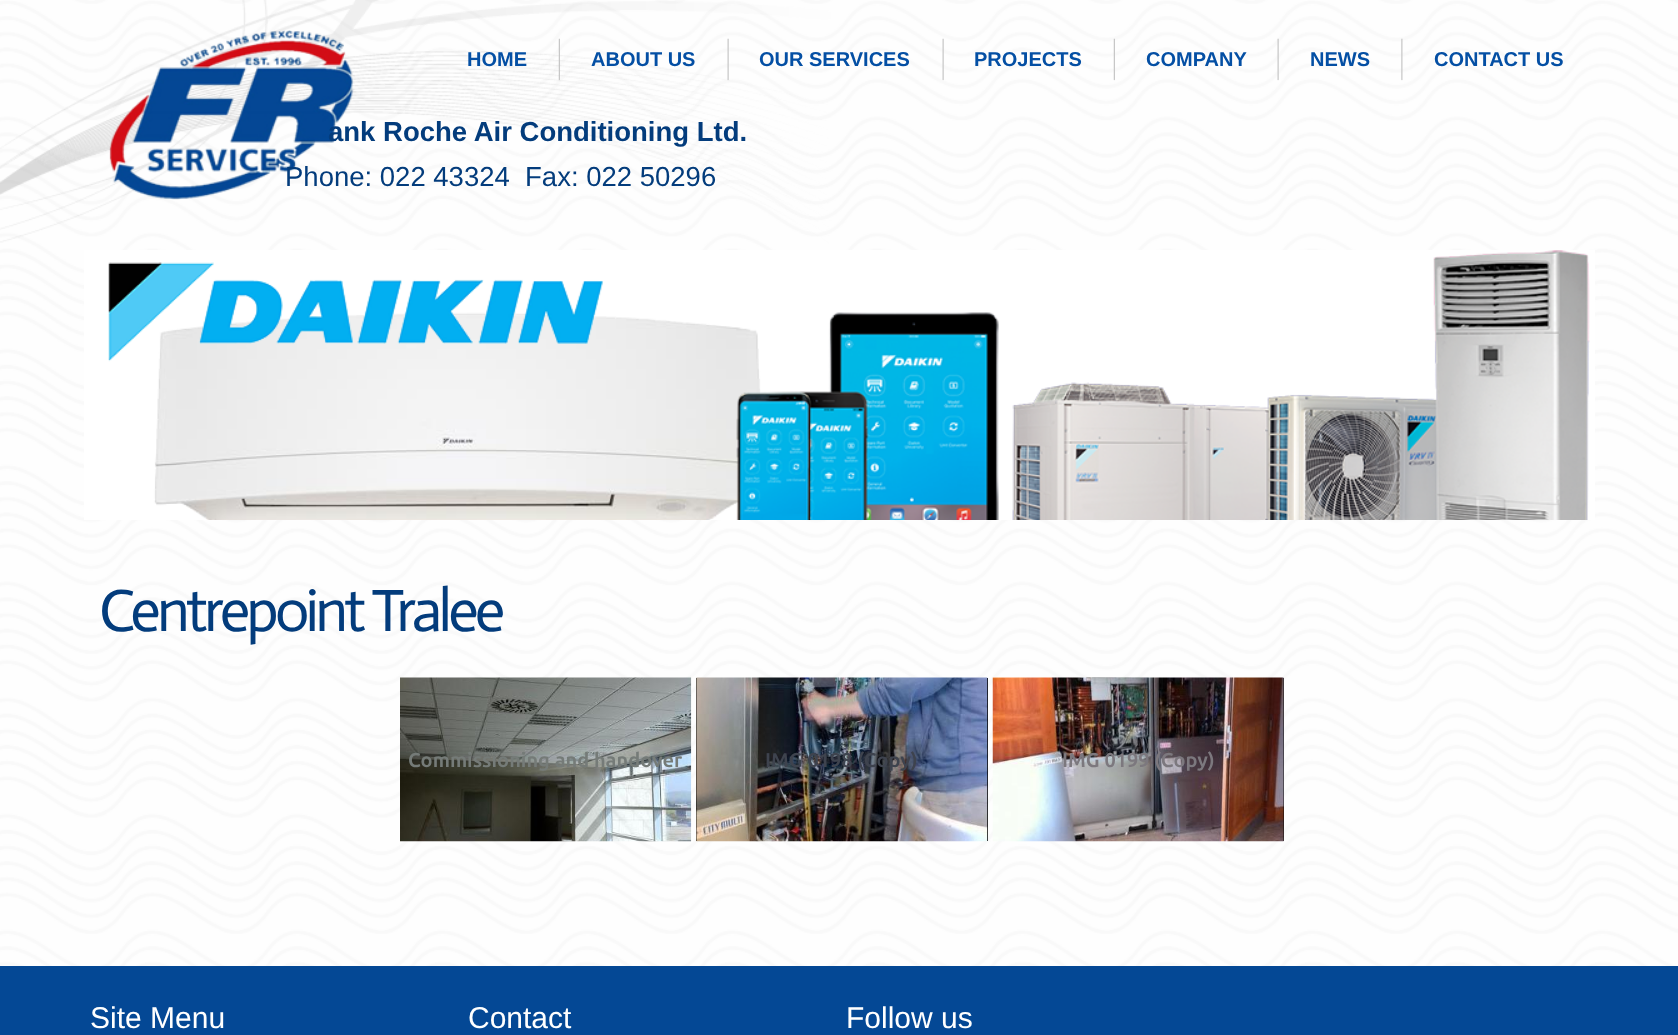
async function draw(canvas) {
  canvas.width = 1678;
  canvas.height = 1035;
  const ctx = canvas.getContext('2d');
  ctx.miterLimit = 4;
  ctx.fontKerning = 'normal';
  function label(s, x, y, font, color) {
    ctx.font = font;
    ctx.fillStyle = color;
    ctx.fillText(s, x, y);
  }
  function rect(x, y, w, h, color) {
    ctx.fillStyle = color;
    ctx.fillRect(x, y, w, h);
  }
  async function image(src, x, y, w, h) {
    const img = new Image();
    img.src = src;
    await img.decode();
    ctx.drawImage(img, x, y, w, h);
  }

  rect(0, 0, 1678, 1035, '#fff');
  await image('assets/img1.png', 0, 0, 1678, 966);
  label('HOME', 467, 66, 'bold 20px Liberation Sans', '#044fa4');
  await image('assets/img2.png', 558, 38, 2, 43);
  label('ABOUT US', 591, 66, 'bold 20px Liberation Sans', '#044fa4');
  await image('assets/img3.png', 727, 38, 2, 43);
  label('OUR SERVICES', 759, 66, 'bold 20px Liberation Sans', '#044fa4');
  await image('assets/img4.png', 942, 38, 2, 43);
  label('PROJECTS', 974, 66, 'bold 20px Liberation Sans', '#044fa4');
  await image('assets/img5.png', 1113, 38, 2, 43);
  label('COMPANY', 1146, 66, 'bold 20px Liberation Sans', '#044fa4');
  await image('assets/img6.png', 1277, 38, 2, 43);
  label('NEWS', 1310, 66, 'bold 20px Liberation Sans', '#044fa4');
  await image('assets/img7.png', 1401, 38, 2, 43);
  label('CONTACT US', 1434, 66, 'bold 20px Liberation Sans', '#044fa4');
  await image('assets/img8.png', 109, 30, 245, 170);
  label('ank Roche Air Conditioning Ltd.', 328, 141, 'bold 27.5px Liberation Sans', '#033c7c');
  label('Phone: 022 43324  Fax: 022 50296', 285, 186, '27.5px Liberation Sans', '#033c7c');
  rect(84, 250, 1511, 270, '#fff');
  await image('assets/img9.png', 108, 250, 1482, 270);
  ctx.letterSpacing = '-3.75px';
  label('Centrepoint Tralee', 99, 631, '60px Actor', '#033c7c');
  await image('assets/img10.png', 400, 677, 292, 165);
  ctx.letterSpacing = '0px';
  label('Commissioning and handover', 408, 767, 'bold 20px Ubuntu', '#757b78');
  rect(696, 678, 292, 163, '#000');
  await image('assets/img11.png', 696, 677, 292, 165);
  label('IMG 0198 (Copy)', 765, 767, 'bold 20px Ubuntu', '#3e434e');
  rect(1283, 678, 1, 163, '#000');
  await image('assets/img12.png', 992, 677, 292, 165);
  label('IMG 0199 (Copy)', 1062, 767, 'bold 20px Ubuntu', '#7c787e');
  rect(0, 966, 1678, 69, '#044895');
  label('Site Menu', 90, 1028, '30px Liberation Sans', '#fff');
  label('Contact', 468, 1028, '30px Liberation Sans', '#fff');
  label('Follow us', 846, 1028, '30px Liberation Sans', '#fff');
}

draw(document.querySelector('canvas'));
